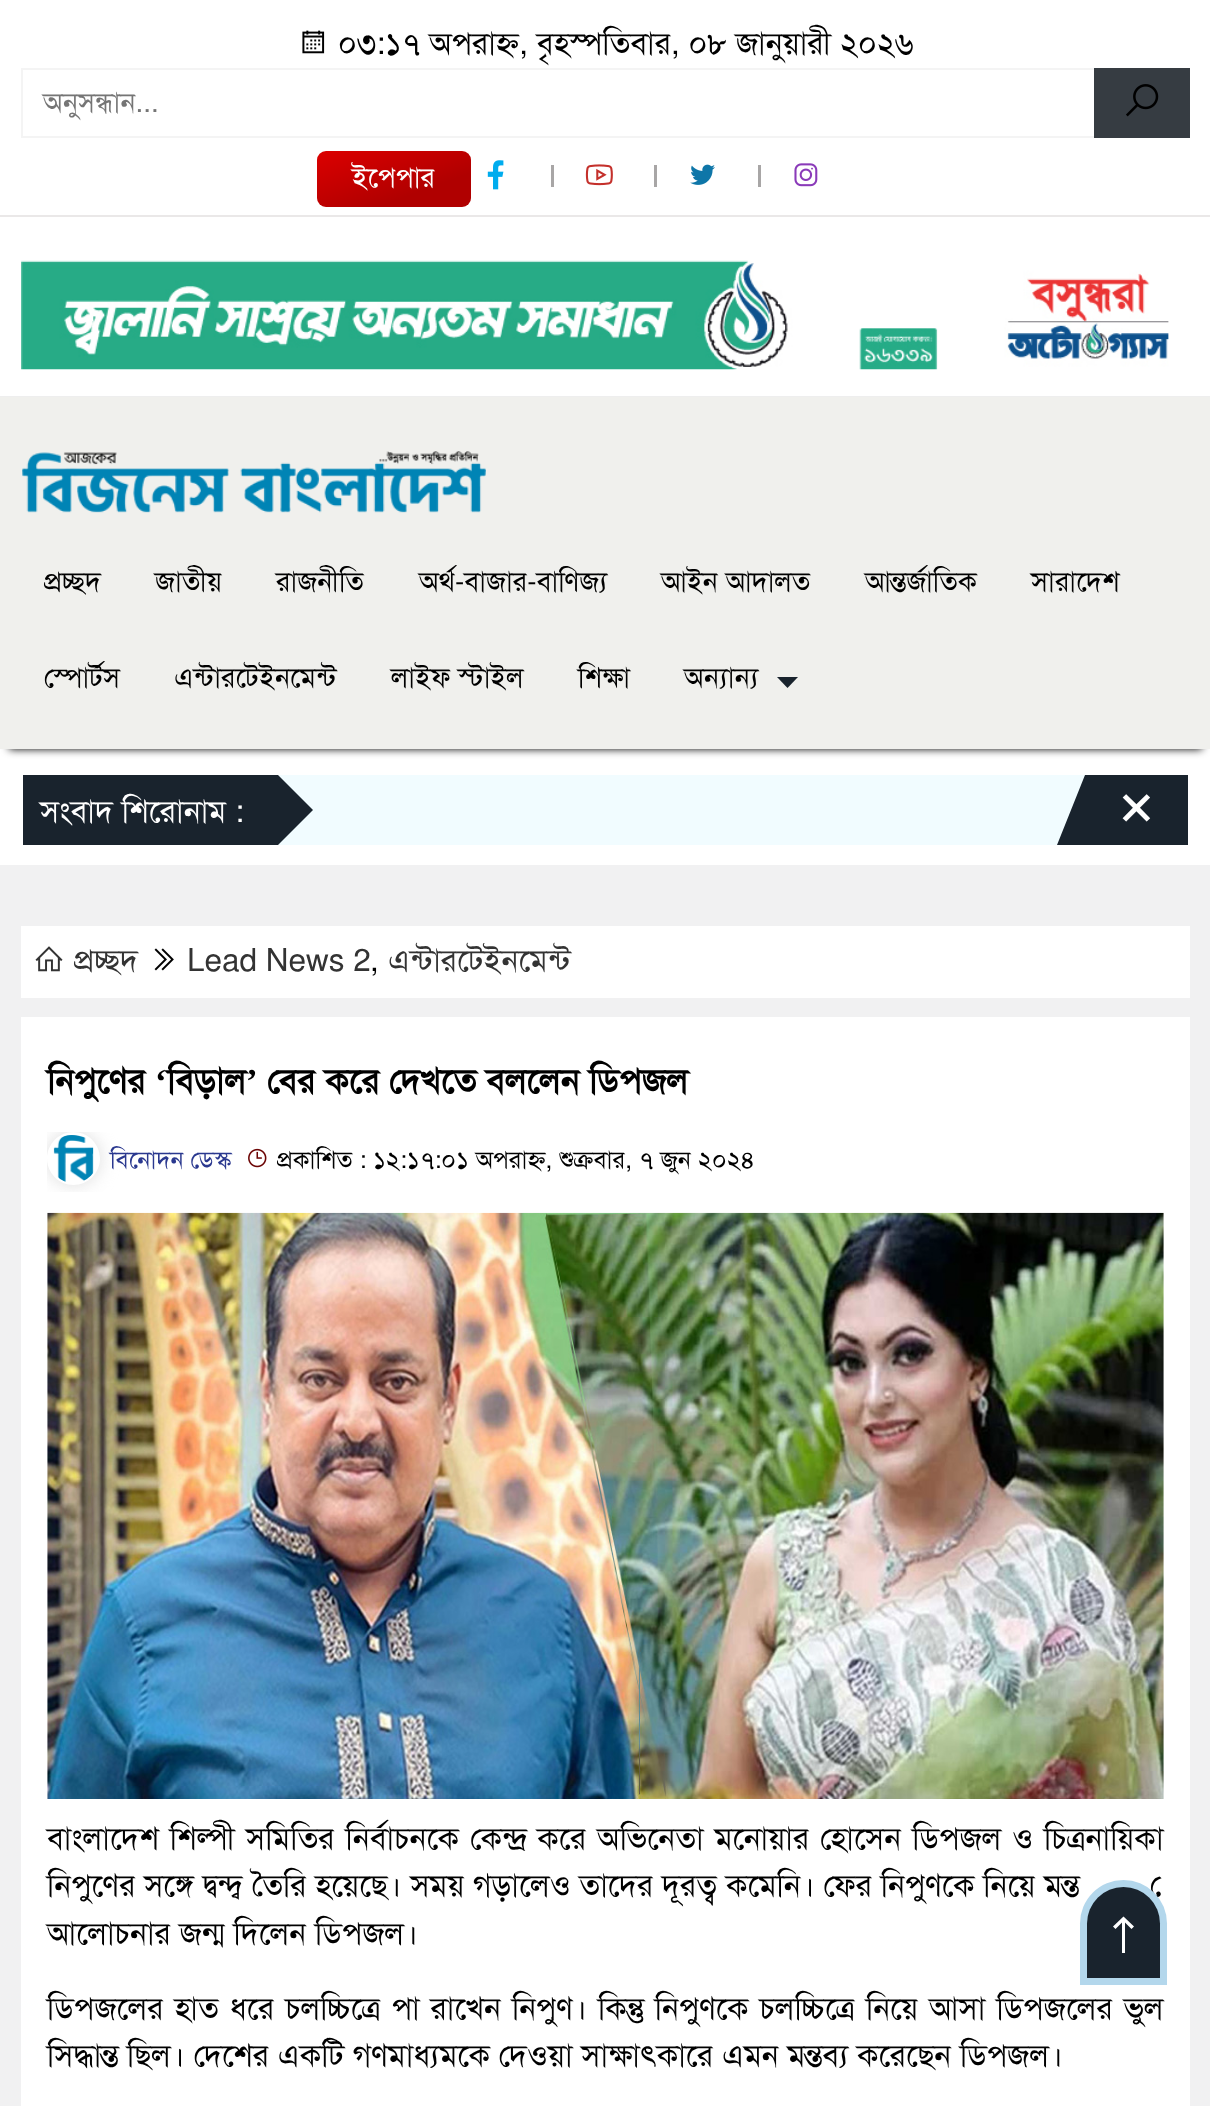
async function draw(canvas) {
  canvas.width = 1210;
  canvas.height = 2106;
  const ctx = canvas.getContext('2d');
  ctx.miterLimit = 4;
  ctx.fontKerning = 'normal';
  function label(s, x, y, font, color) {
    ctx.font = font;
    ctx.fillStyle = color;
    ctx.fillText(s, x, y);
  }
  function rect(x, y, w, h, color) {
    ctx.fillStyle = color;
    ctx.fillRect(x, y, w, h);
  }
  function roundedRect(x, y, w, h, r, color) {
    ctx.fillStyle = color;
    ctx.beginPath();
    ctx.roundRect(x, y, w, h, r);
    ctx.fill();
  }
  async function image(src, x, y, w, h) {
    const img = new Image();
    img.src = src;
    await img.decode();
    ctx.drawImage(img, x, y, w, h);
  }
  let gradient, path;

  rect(0, 0, 1210, 2106, '#fff');
  rect(0, 396, 1210, 1, '#eee');
  await image('assets/img1.png', 302, 30, 23, 24);
  label('০৩:১৭ অপরাহ্ন, বৃহস্পতিবার, ০৮ জানুয়ারী ২০২৬', 338, 54, '31.5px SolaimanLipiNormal', '#000');
  ctx.strokeStyle = '#f4f4f4';
  ctx.lineWidth = 2;
  ctx.strokeRect(22, 69, 1167, 68);
  label('অনুসন্ধান...', 43, 112, '28px SolaimanLipiNormal', '#757575');
  rect(1094, 68, 96, 70, '#363c42');
  await image('assets/img2.png', 1126, 84, 33, 33);
  roundedRect(317, 151, 154, 56, 9, '#dc0000');
  gradient = ctx.createLinearGradient(412, 228, 376, 129);
  gradient.addColorStop(0, '#00000033');
  gradient.addColorStop(0.3, '#00000033');
  gradient.addColorStop(1, '#00000000');
  ctx.fillStyle = gradient;
  ctx.beginPath();
  ctx.roundRect(317, 151, 154, 56, 9);
  ctx.fill();
  label('ইপেপার', 352, 187, '28px SolaimanLipiNormal', '#fff');
  await image('assets/img3.png', 487, 160, 17, 30);
  rect(551, 165, 3, 22, '#a8a6a6');
  await image('assets/img4.png', 585, 164, 28, 22);
  rect(654, 165, 3, 22, '#a8a6a6');
  await image('assets/img5.png', 690, 164, 25, 21);
  rect(758, 165, 3, 22, '#a8a6a6');
  await image('assets/img6.png', 794, 163, 24, 24);
  rect(0, 215, 1210, 2, '#eae8e8');
  await image('assets/img7.png', 21, 260, 1148, 110);
  ctx.fillStyle = '#000';
  ctx.filter = 'blur(4.5px)';
  ctx.beginPath();
  ctx.rect(9, 415, 1193, 334);
  ctx.fill();
  ctx.filter = 'none';
  rect(0, 397, 1210, 352, '#f0f0ed');
  await image('assets/img8.png', 22, 451, 464, 62);
  label('প্রচ্ছদ', 44, 591, '28px SolaimanLipiNormal', '#000');
  label('জাতীয়', 155, 591, '28px SolaimanLipiNormal', '#000');
  label('রাজনীতি', 276, 591, '28px SolaimanLipiNormal', '#000');
  label('অর্থ-বাজার-বাণিজ্য', 419, 591, '28px SolaimanLipiNormal', '#000');
  label('আইন আদালত', 661, 591, '28px SolaimanLipiNormal', '#000');
  label('আন্তর্জাতিক', 865, 591, '28px SolaimanLipiNormal', '#000');
  label('সারাদেশ', 1031, 591, '28px SolaimanLipiNormal', '#000');
  label('স্পোর্টস', 44, 687, '28px SolaimanLipiNormal', '#000');
  label('এন্টারটেইনমেন্ট', 174, 687, '28px SolaimanLipiNormal', '#000');
  label('লাইফ স্টাইল', 391, 687, '28px SolaimanLipiNormal', '#000');
  label('শিক্ষা', 578, 687, '28px SolaimanLipiNormal', '#000');
  label('অন্যান্য', 684, 687, '28px SolaimanLipiNormal', '#000');
  ctx.fillStyle = '#19232d';
  path = new Path2D('M777 677H798L787.5 688Z');
  ctx.fill(path);
  rect(23, 775, 255, 70, '#19232d');
  label('সংবাদ শিরোনাম :', 40, 822, '31.5px SolaimanLipiNormal', '#fff');
  rect(278, 775, 807, 70, '#f1fcff');
  ctx.fillStyle = '#19232d';
  path = new Path2D('M278 845V775L313 810Z');
  ctx.fill(path);
  rect(1085, 775, 103, 70, '#19232d');
  path = new Path2D('M1085 845H1057L1085 775Z');
  ctx.fill(path);
  label('×', 1116, 824, '70px SolaimanLipiNormal', '#fff');
  rect(0, 865, 1210, 1241, '#f1f1f2');
  rect(21, 926, 1169, 72, '#fff');
  await image('assets/img9.png', 35, 946, 28, 26);
  label('প্রচ্ছদ', 74, 971, '31.5px SolaimanLipiNormal', '#333');
  await image('assets/img10.png', 154, 948, 20, 23);
  label('Lead News 2', 187, 971, '31.5px SolaimanLipiNormal', '#333');
  label(',', 370, 971, '31.5px SolaimanLipiNormal', '#000');
  label('এন্টারটেইনমেন্ট', 388, 971, '31.5px SolaimanLipiNormal', '#333');
  rect(21, 1017, 1169, 1089, '#fff');
  label('নিপুণের', 47, 1093, 'bold 35px SolaimanLipiNormal', '#000');
  label('‘', 155, 1093, 'bold 35px Liberation Serif', '#000');
  label('বিড়াল', 167, 1093, 'bold 35px SolaimanLipiNormal', '#000');
  label('’', 246, 1093, 'bold 35px Liberation Serif', '#000');
  label('বের করে দেখতে বললেন ডিপজল', 267, 1093, 'bold 35px SolaimanLipiNormal', '#000');
  ctx.save();
  ctx.beginPath();
  ctx.rect(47, 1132, 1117, 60);
  ctx.clip();
  path = new Path2D('M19 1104H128V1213H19ZM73.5 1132C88 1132 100 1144 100 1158.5C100 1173 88 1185 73.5 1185C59 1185 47 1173 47 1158.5C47 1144 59 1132 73.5 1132Z');
  ctx.clip(path, 'evenodd');
  ctx.fillStyle = '#ddd';
  ctx.filter = 'blur(9px)';
  ctx.beginPath();
  ctx.roundRect(47, 1132, 53, 53, 26.5);
  ctx.fill();
  ctx.filter = 'none';
  ctx.restore();
  await image('assets/img11.png', 53, 1135, 41, 47);
  label('বিনোদন ডেস্ক', 110, 1168, '24.5px SolaimanLipiNormal', '#2a388f');
  await image('assets/img12.png', 248, 1148, 19, 20);
  label('প্রকাশিত : ১২:১৭:০১ অপরাহ্ন, শুক্রবার, ৭ জুন ২০২৪', 277, 1168, '24.5px SolaimanLipiNormal', '#000');
  await image('assets/img13.png', 47, 1212, 1117, 587);
  ctx.wordSpacing = '2.25px';
  label('বাংলাদেশ শিল্পী সমিতির নির্বাচনকে কেন্দ্র করে অভিনেতা মনোয়ার হোসেন ডিপজল ও চিত্রনায়িকা', 47, 1849, '31.5px SolaimanLipiNormal', '#000');
  ctx.wordSpacing = '0px';
  label('নিপুণের সঙ্গে দ্বন্দ্ব তৈরি হয়েছে। সময় গড়ালেও তাদের দূরত্ব কমেনি। ফের নিপুণকে নিয়ে মন্ত', 47, 1896, '31.5px SolaimanLipiNormal', '#000');
  label('ে', 1150, 1896, '31.5px SolaimanLipiNormal', '#000');
  label('আলোচনার জন্ম দিলেন ডিপজল।', 47, 1944, '31.5px SolaimanLipiNormal', '#000');
  ctx.wordSpacing = '2.25px';
  label('ডিপজলের হাত ধরে চলচ্চিত্রে পা রাখেন নিপুণ। কিন্তু নিপুণকে চলচ্চিত্রে নিয়ে আসা ডিপজলের ভুল', 47, 2019, '31.5px SolaimanLipiNormal', '#000');
  ctx.wordSpacing = '0px';
  label('সিদ্ধান্ত ছিল। দেশের একটি গণমাধ্যমকে দেওয়া সাক্ষাৎকারে এমন মন্তব্য করেছেন ডিপজল।', 47, 2066, '31.5px SolaimanLipiNormal', '#000');
  ctx.fillStyle = '#b3d7ec';
  ctx.beginPath();
  ctx.roundRect(1080, 1880, 87, 105, [43.5, 43.5, 0, 0]);
  ctx.fill();
  ctx.fillStyle = '#19232d';
  ctx.beginPath();
  ctx.roundRect(1087, 1887, 73, 91, [36.5, 36.5, 0, 0]);
  ctx.fill();
  ctx.fillStyle = '#fff';
  path = new Path2D('M1123.5 1916.5L1113 1926.5L1115.5 1929L1122 1922.5V1953H1125V1922.5L1131.5 1929L1134 1926.5Z');
  ctx.fill(path);
}

draw(document.querySelector('canvas'));
